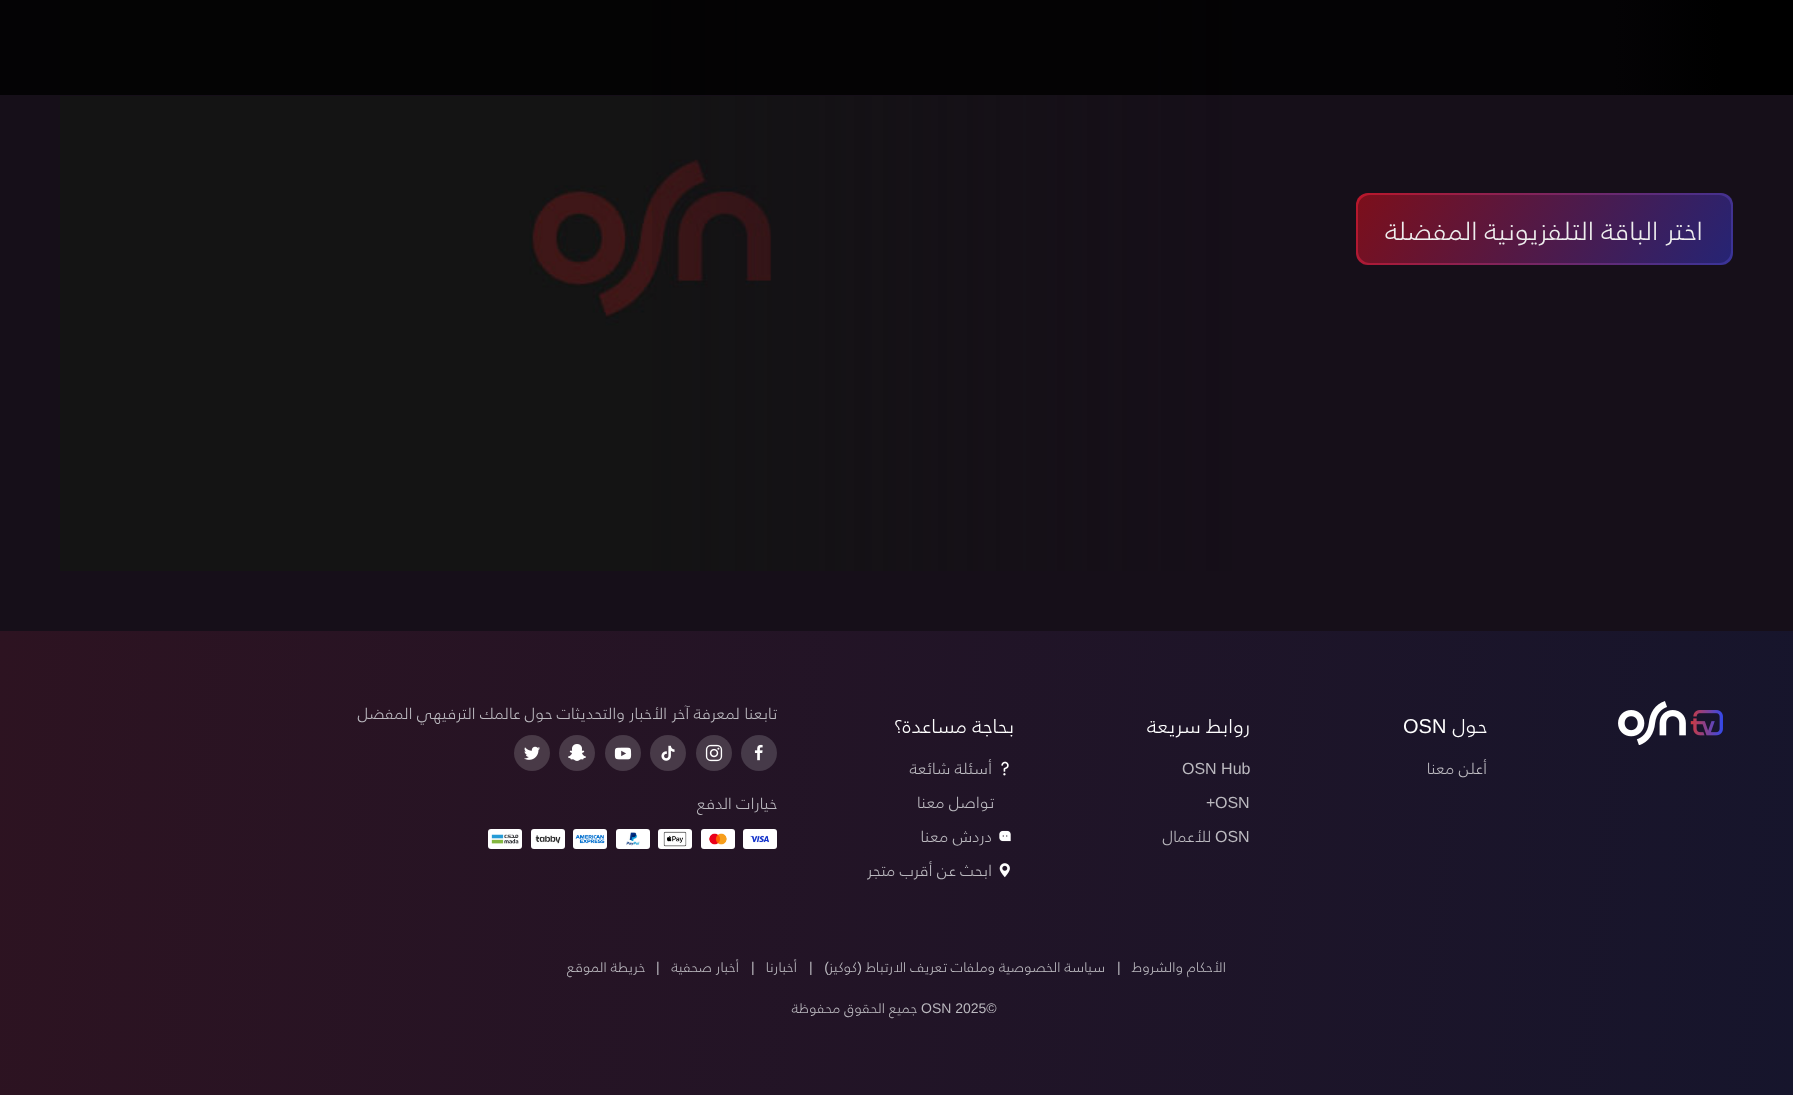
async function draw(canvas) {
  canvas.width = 1793;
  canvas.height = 1095;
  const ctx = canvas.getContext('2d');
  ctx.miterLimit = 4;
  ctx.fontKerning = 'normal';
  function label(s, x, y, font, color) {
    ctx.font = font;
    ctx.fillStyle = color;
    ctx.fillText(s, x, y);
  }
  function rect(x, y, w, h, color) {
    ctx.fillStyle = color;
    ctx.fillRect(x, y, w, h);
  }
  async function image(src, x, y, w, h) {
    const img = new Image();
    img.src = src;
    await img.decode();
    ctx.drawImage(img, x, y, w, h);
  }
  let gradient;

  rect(0, 0, 1793, 1095, '#fff');
  rect(0, 0, 1793, 631, '#160f19');
  await image('assets/img1.png', 60, 0, 1182, 571);
  await image('assets/img2.png', 652, 0, 590, 571);
  rect(0, 0, 1614, 95, '#000000cc');
  rect(60, 95, 895, 1, '#160f19');
  gradient = ctx.createLinearGradient(1614, 48, 1793, 47);
  gradient.addColorStop(0, '#040305');
  gradient.addColorStop(0.6, '#000');
  gradient.addColorStop(1, '#000');
  ctx.fillStyle = gradient;
  ctx.fillRect(1614, 0, 179, 95);
  gradient = ctx.createLinearGradient(1709, 313, 1380, 145);
  gradient.addColorStop(0, '#38349a');
  gradient.addColorStop(1, '#ba172a');
  ctx.fillStyle = gradient;
  ctx.beginPath();
  ctx.roundRect(1356, 193, 377, 72, 12);
  ctx.fill();
  gradient = ctx.createLinearGradient(1395, 136, 1694, 322);
  gradient.addColorStop(0, '#7c0f1b');
  gradient.addColorStop(1, '#262474');
  ctx.fillStyle = gradient;
  ctx.beginPath();
  ctx.roundRect(1358, 195, 373, 68, 12);
  ctx.fill();
  ctx.direction = 'rtl';
  label('اختر الباقة التلفزيونية المفضلة', 1703, 240, '300 26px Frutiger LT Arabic', '#eee');
  gradient = ctx.createLinearGradient(-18, 799, 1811, 991);
  gradient.addColorStop(0, '#2d1321');
  gradient.addColorStop(1, '#16152c');
  ctx.fillStyle = gradient;
  ctx.fillRect(0, 631, 1793, 464);
  await image('assets/img3.png', 1618, 701, 105, 44);
  label('حول', 1487, 733, '300 20px Frutiger LT Arabic', '#fff');
  ctx.direction = 'ltr';
  label('OSN', 1403, 733, '20px Liberation Sans', '#fff');
  ctx.direction = 'rtl';
  label('أعلن معنا', 1487, 774, '300 16px Frutiger LT Arabic', '#bbb9bf');
  label('روابط سريعة', 1250, 733, '300 20px Frutiger LT Arabic', '#fff');
  ctx.direction = 'ltr';
  label('OSN Hub', 1182, 774, '16px Liberation Sans', '#bbb9bf');
  label('OSN', 1215, 808, '16px Liberation Sans', '#bbb9bf');
  label('+', 1206, 808, '16px Liberation Sans', '#bbb9bf');
  label('OSN', 1215, 842, '16px Liberation Sans', '#bbb9bf');
  ctx.direction = 'rtl';
  label('للأعمال', 1211, 842, '300 16px Frutiger LT Arabic', '#bbb9bf');
  label('بحاجة مساعدة؟', 1014, 733, '300 20px Frutiger LT Arabic', '#fff');
  await image('assets/img4.png', 1001, 761, 8, 15);
  label('أسئلة شائعة', 992, 774, '300 16px Frutiger LT Arabic', '#bbb9bf');
  label('تواصل معنا', 994, 808, '300 16px Frutiger LT Arabic', '#bbb9bf');
  await image('assets/img5.png', 999, 830, 12, 12);
  label('دردش معنا', 992, 842, '300 16px Frutiger LT Arabic', '#bbb9bf');
  await image('assets/img6.png', 999, 863, 11, 15);
  label('ابحث عن أقرب متجر', 992, 876, '300 16px Frutiger LT Arabic', '#bbb9bf');
  label('تابعنا لمعرفة آخر الأخبار والتحديثات حول عالمك الترفيهي المفضل', 777, 719, '300 16px Frutiger LT Arabic', '#bbb9bf');
  ctx.fillStyle = '#463a49';
  ctx.beginPath();
  ctx.arc(759, 753, 18, 0, 2 * Math.PI);
  ctx.fill();
  await image('assets/img7.png', 754, 744, 9, 17);
  ctx.fillStyle = '#473a48';
  ctx.beginPath();
  ctx.arc(714, 753, 18, 0, 2 * Math.PI);
  ctx.fill();
  await image('assets/img8.png', 705, 744, 18, 18);
  ctx.fillStyle = '#483a48';
  ctx.beginPath();
  ctx.arc(668, 753, 18, 0, 2 * Math.PI);
  ctx.fill();
  await image('assets/img9.png', 661, 745, 14, 16);
  ctx.beginPath();
  ctx.arc(623, 753, 18, 0, 2 * Math.PI);
  ctx.fill();
  await image('assets/img10.png', 614, 747, 18, 13);
  ctx.fillStyle = '#493a48';
  ctx.beginPath();
  ctx.arc(577, 753, 18, 0, 2 * Math.PI);
  ctx.fill();
  await image('assets/img11.png', 568, 744, 18, 17);
  ctx.fillStyle = '#493a47';
  ctx.beginPath();
  ctx.arc(532, 753, 18, 0, 2 * Math.PI);
  ctx.fill();
  await image('assets/img12.png', 524, 746, 16, 14);
  label('خيارات الدفع', 777, 809, '300 16px Frutiger LT Arabic', '#bbb9bf');
  await image('assets/img13.png', 743, 829, 34, 20);
  await image('assets/img14.png', 701, 829, 34, 20);
  await image('assets/img15.png', 658, 829, 34, 20);
  await image('assets/img16.png', 616, 829, 34, 20);
  await image('assets/img17.png', 573, 829, 34, 20);
  await image('assets/img18.png', 531, 829, 34, 20);
  await image('assets/img19.png', 488, 829, 34, 20);
  label('الأحكام والشروط', 1226, 972, '300 14px Frutiger LT Arabic', '#bbb9bf');
  ctx.direction = 'ltr';
  label('|', 1117, 972, '14px Liberation Sans', '#bbb9bf');
  ctx.direction = 'rtl';
  label('سياسة الخصوصية وملفات تعريف الارتباط', 1105, 972, '300 14px Frutiger LT Arabic', '#bbb9bf');
  label('(', 862, 972, '14px Liberation Sans', '#bbb9bf');
  label(')', 829, 972, '14px Liberation Sans', '#bbb9bf');
  label('كوكيز', 857, 972, '300 14px Frutiger LT Arabic', '#bbb9bf');
  ctx.direction = 'ltr';
  label('|', 809, 972, '14px Liberation Sans', '#bbb9bf');
  ctx.direction = 'rtl';
  label('أخبارنا', 797, 972, '300 14px Frutiger LT Arabic', '#bbb9bf');
  ctx.direction = 'ltr';
  label('|', 751, 972, '14px Liberation Sans', '#bbb9bf');
  ctx.direction = 'rtl';
  label('أخبار صحفية', 739, 972, '300 14px Frutiger LT Arabic', '#bbb9bf');
  ctx.direction = 'ltr';
  label('|', 656, 972, '14px Liberation Sans', '#bbb9bf');
  ctx.direction = 'rtl';
  label('خريطة الموقع', 645, 972, '300 14px Frutiger LT Arabic', '#bbb9bf');
  ctx.direction = 'ltr';
  label('OSN 2025©', 921, 1013, '14px Liberation Sans', '#bbb9bf');
  ctx.direction = 'rtl';
  label('جميع الحقوق محفوظة', 917, 1013, '300 14px Frutiger LT Arabic', '#bbb9bf');
}

draw(document.querySelector('canvas'));
